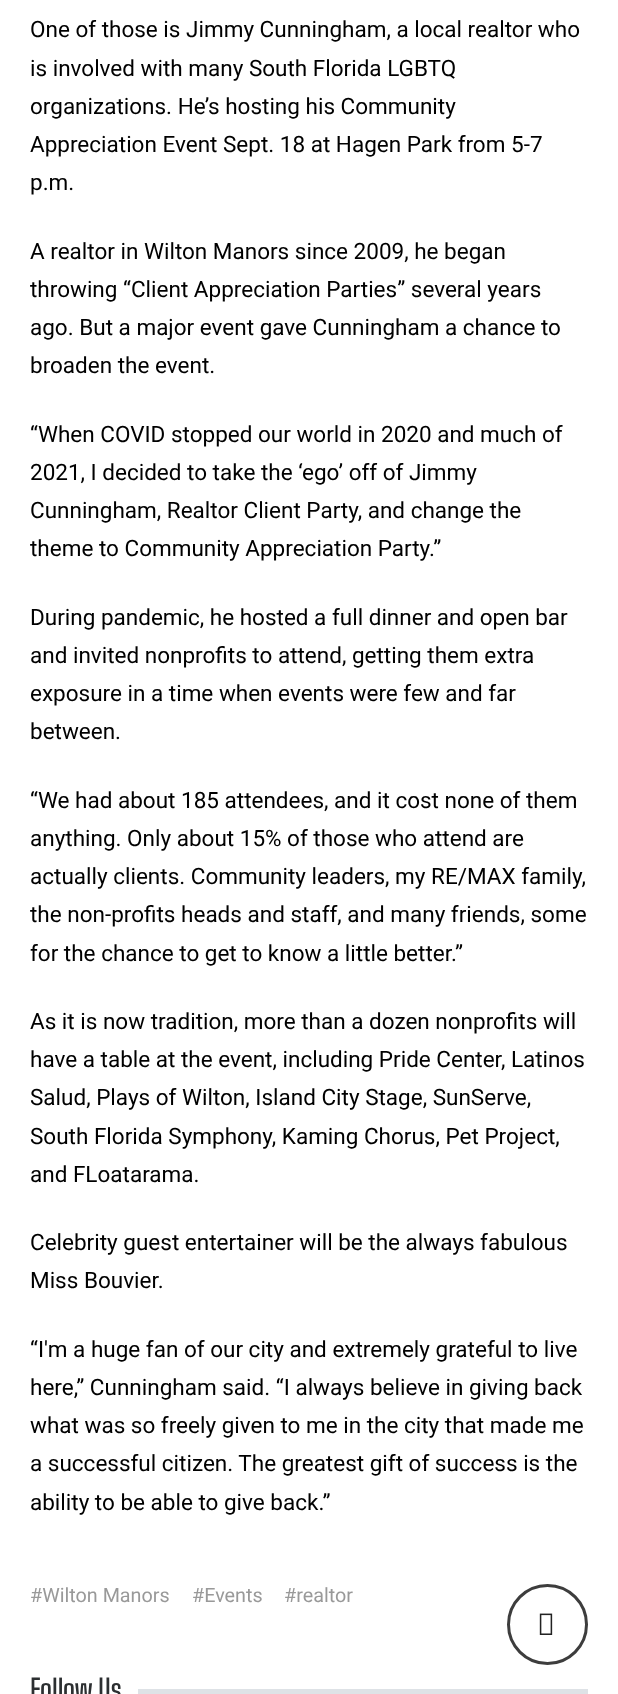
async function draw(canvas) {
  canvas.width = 618;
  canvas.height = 1694;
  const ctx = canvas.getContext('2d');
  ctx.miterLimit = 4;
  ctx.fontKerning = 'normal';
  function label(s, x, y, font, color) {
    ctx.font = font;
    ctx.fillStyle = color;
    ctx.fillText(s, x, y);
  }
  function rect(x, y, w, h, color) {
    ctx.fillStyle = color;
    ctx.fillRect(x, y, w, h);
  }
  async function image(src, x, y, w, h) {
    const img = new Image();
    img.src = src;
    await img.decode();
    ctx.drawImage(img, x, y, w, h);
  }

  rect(0, 0, 618, 1694, '#fff');
  label('One of those is Jimmy Cunningham, a local realtor who', 30, 37, '22.5px Roboto', '#000');
  label('is involved with many South Florida LGBTQ', 30, 76, '22.5px Roboto', '#000');
  label('organizations. He’s hosting his Community', 30, 114, '22.5px Roboto', '#000');
  label('Appreciation Event Sept. 18 at Hagen Park from 5-7', 30, 152, '22.5px Roboto', '#000');
  label('p.m.', 30, 190, '22.5px Roboto', '#000');
  label('A realtor in Wilton Manors since 2009, he began', 30, 259, '22.5px Roboto', '#000');
  label('throwing “Client Appreciation Parties” several years', 30, 297, '22.5px Roboto', '#000');
  label('ago. But a major event gave Cunningham a chance to', 30, 335, '22.5px Roboto', '#000');
  label('broaden the event.', 30, 373, '22.5px Roboto', '#000');
  label('“When COVID stopped our world in 2020 and much of', 30, 442, '22.5px Roboto', '#000');
  label('2021, I decided to take the ‘ego’ off of Jimmy', 30, 480, '22.5px Roboto', '#000');
  label('Cunningham, Realtor Client Party, and change the', 30, 518, '22.5px Roboto', '#000');
  label('theme to Community Appreciation Party.”', 30, 556, '22.5px Roboto', '#000');
  label('During pandemic, he hosted a full dinner and open bar', 30, 625, '22.5px Roboto', '#000');
  label('and invited nonprofits to attend, getting them extra', 30, 663, '22.5px Roboto', '#000');
  label('exposure in a time when events were few and far', 30, 701, '22.5px Roboto', '#000');
  label('between.', 30, 739, '22.5px Roboto', '#000');
  label('“We had about 185 attendees, and it cost none of them', 30, 808, '22.5px Roboto', '#000');
  label('anything. Only about 15% of those who attend are', 30, 846, '22.5px Roboto', '#000');
  label('actually clients. Community leaders, my RE/MAX family,', 30, 884, '22.5px Roboto', '#000');
  label('the non-profits heads and staff, and many friends, some', 30, 922, '22.5px Roboto', '#000');
  label('for the chance to get to know a little better.”', 30, 961, '22.5px Roboto', '#000');
  label('As it is now tradition, more than a dozen nonprofits will', 30, 1029, '22.5px Roboto', '#000');
  label('have a table at the event, including Pride Center, Latinos', 30, 1067, '22.5px Roboto', '#000');
  label('Salud, Plays of Wilton, Island City Stage, SunServe,', 30, 1105, '22.5px Roboto', '#000');
  label('South Florida Symphony, Kaming Chorus, Pet Project,', 30, 1144, '22.5px Roboto', '#000');
  label('and FLoatarama.', 30, 1182, '22.5px Roboto', '#000');
  label('Celebrity guest entertainer will be the always fabulous', 30, 1250, '22.5px Roboto', '#000');
  label('Miss Bouvier.', 30, 1288, '22.5px Roboto', '#000');
  label('“I\'m a huge fan of our city and extremely grateful to live', 30, 1357, '22.5px Roboto', '#000');
  label('here,” Cunningham said. “I always believe in giving back', 30, 1395, '22.5px Roboto', '#000');
  label('what was so freely given to me in the city that made me', 30, 1433, '22.5px Roboto', '#000');
  label('a successful citizen. The greatest gift of success is the', 30, 1471, '22.5px Roboto', '#000');
  label('ability to be able to give back.”', 30, 1510, '22.5px Roboto', '#000');
  label('#Wilton Manors', 30, 1602, '19.75px Roboto', '#999');
  label('#Events', 192, 1602, '19.75px Roboto', '#999');
  label('#realtor', 284, 1602, '19.75px Roboto', '#999');
  label('Follow Us', 30, 1700, '600 28px Big Shoulders Text', '#2c2f31');
  rect(138, 1689, 450, 5, '#dee2e6');
  ctx.beginPath();
  ctx.arc(547.5, 1624.5, 39, 0, 2 * Math.PI);
  ctx.strokeStyle = '#3d3d3d';
  ctx.lineWidth = 3;
  ctx.stroke();
  await image('assets/img1.png', 539, 1613, 14, 22);
}

draw(document.querySelector('canvas'));
